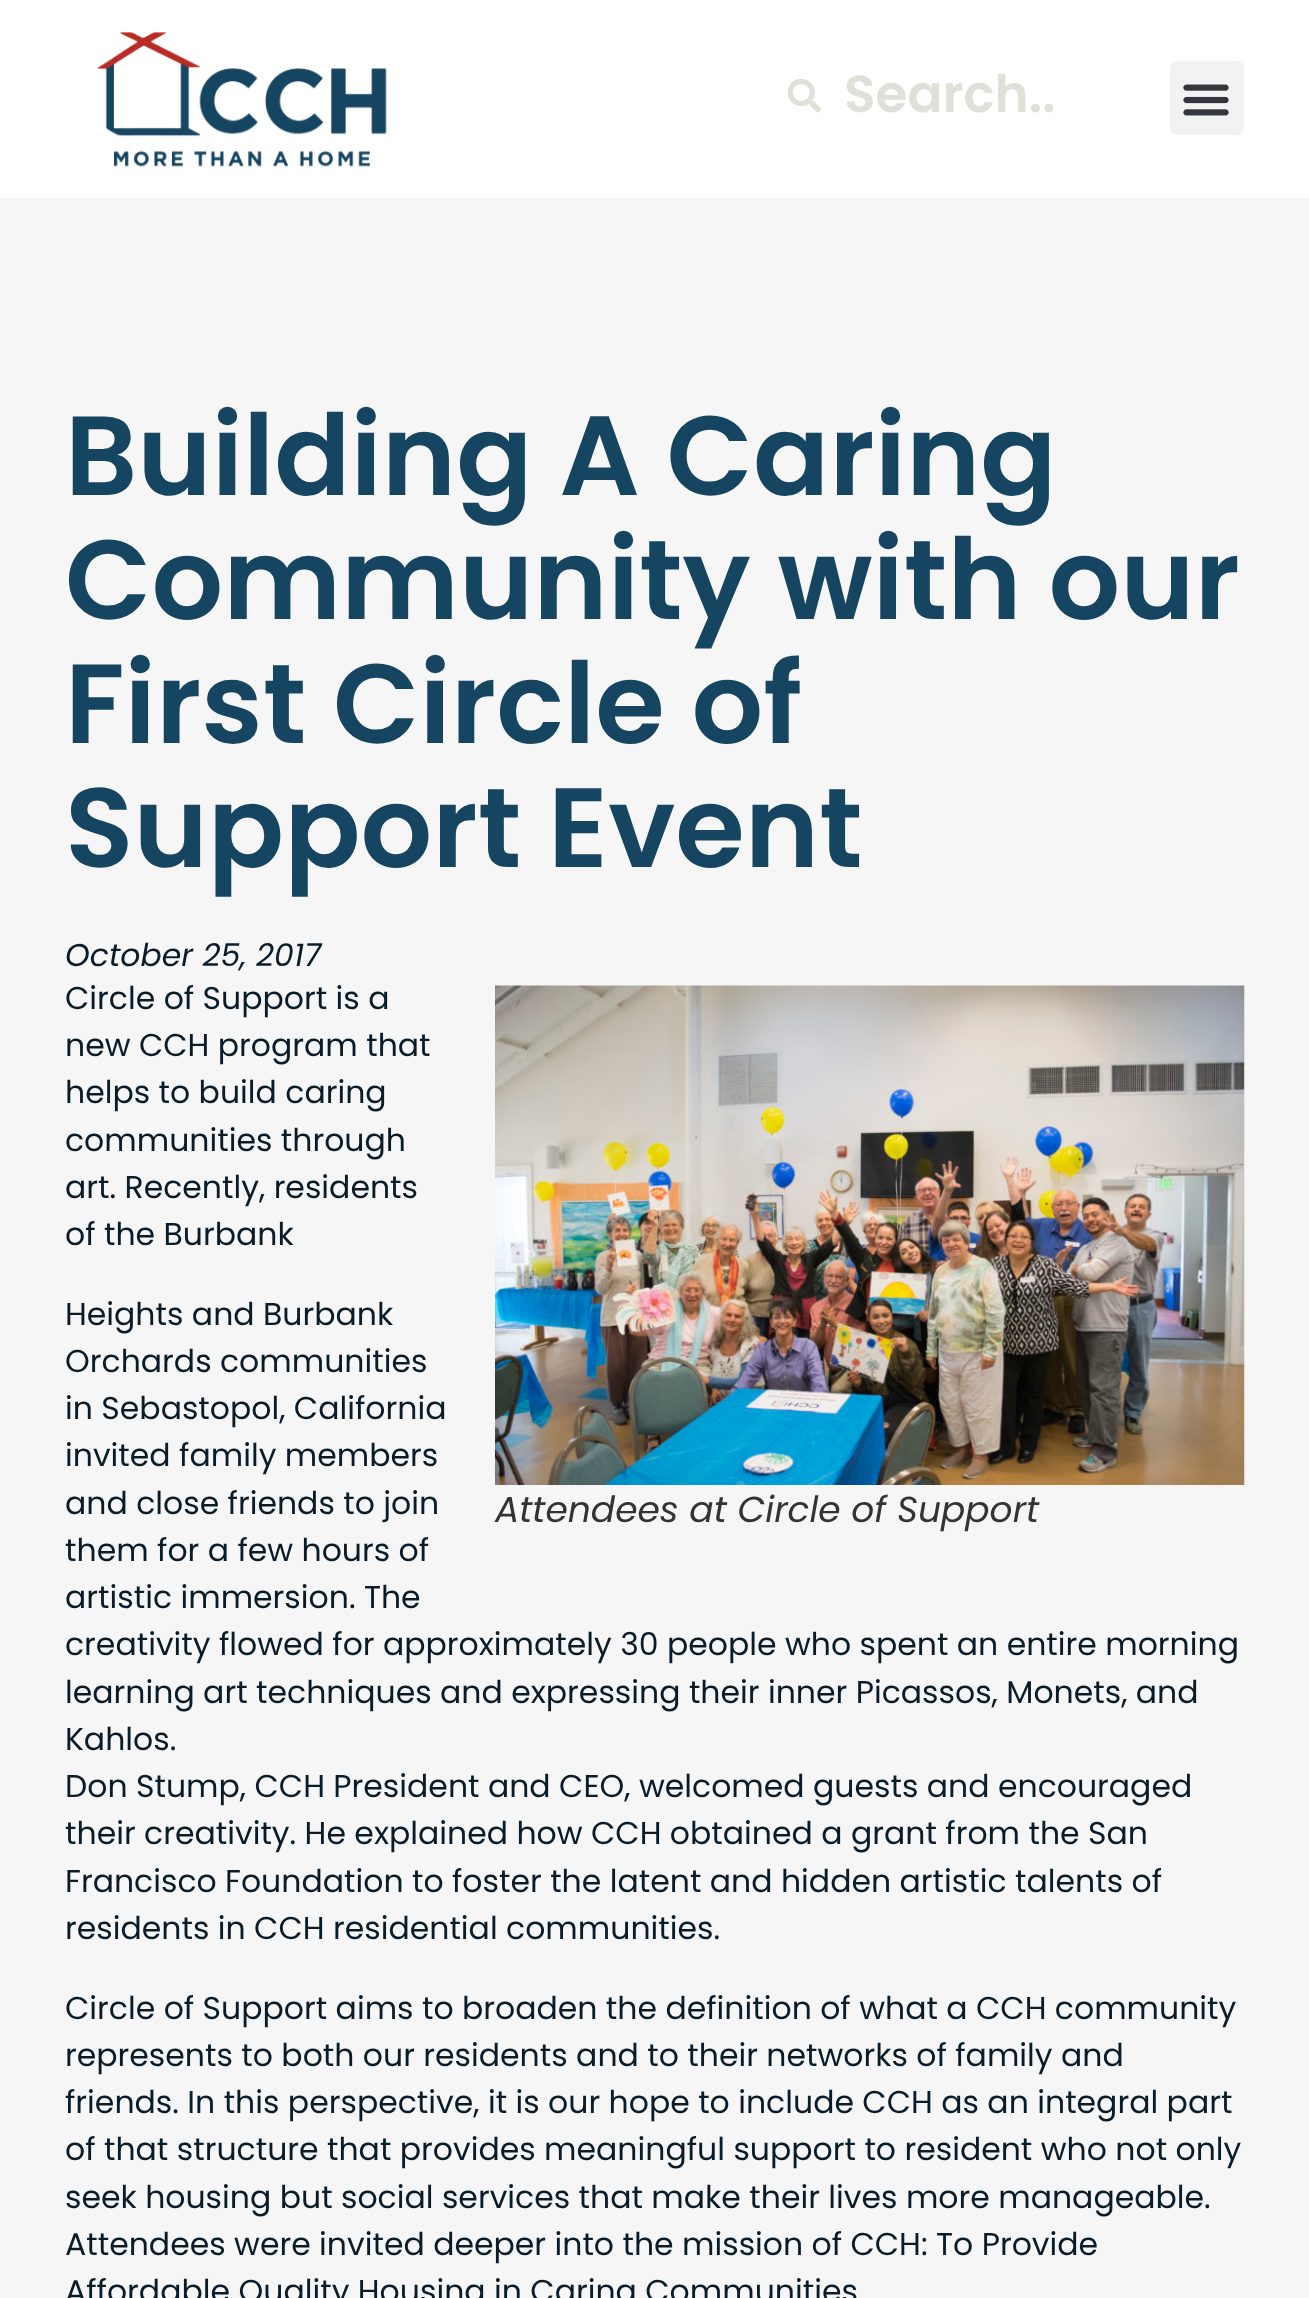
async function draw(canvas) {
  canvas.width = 1309;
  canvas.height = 2298;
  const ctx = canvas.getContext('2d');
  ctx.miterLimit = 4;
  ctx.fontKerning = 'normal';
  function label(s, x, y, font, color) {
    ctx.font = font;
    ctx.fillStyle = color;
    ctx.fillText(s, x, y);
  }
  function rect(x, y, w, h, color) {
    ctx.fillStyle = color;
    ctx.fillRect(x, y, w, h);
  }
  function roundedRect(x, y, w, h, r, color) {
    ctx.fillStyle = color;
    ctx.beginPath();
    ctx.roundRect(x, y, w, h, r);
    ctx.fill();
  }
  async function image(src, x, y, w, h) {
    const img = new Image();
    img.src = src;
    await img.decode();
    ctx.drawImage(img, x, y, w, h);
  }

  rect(0, 0, 1309, 2298, '#f6f6f6');
  rect(0, 0, 1309, 198, '#fff');
  await image('assets/img1.png', 97, 32, 290, 135);
  await image('assets/img2.png', 788, 79, 33, 34);
  label('Search..', 844, 112, '600 51.75px Poppins', '#e0e0d8');
  roundedRect(1170, 61, 74, 74, 7, '#f2f2f2');
  await image('assets/img3.png', 1183, 84, 46, 32);
  label('Building A Caring', 65, 495, '600 112.5px Poppins', '#164562');
  label('Community with our', 65, 619, '600 112.5px Poppins', '#164562');
  label('First Circle of', 65, 743, '600 112.5px Poppins', '#164562');
  label('Support Event', 65, 867, '600 112.5px Poppins', '#164562');
  label('October 25, 2017', 65, 966, 'italic 31.5px Poppins', '#081c29');
  label('Circle of Support is a', 65, 1009, '31.5px Poppins', '#081c29');
  label('new CCH program that', 65, 1056, '31.5px Poppins', '#081c29');
  label('helps to build caring', 65, 1103, '31.5px Poppins', '#081c29');
  label('communities through', 65, 1151, '31.5px Poppins', '#081c29');
  label('art. Recently, residents', 65, 1198, '31.5px Poppins', '#081c29');
  label('of the Burbank', 65, 1245, '31.5px Poppins', '#081c29');
  label('Heights and Burbank', 65, 1325, '31.5px Poppins', '#081c29');
  label('Orchards communities', 65, 1372, '31.5px Poppins', '#081c29');
  label('in Sebastopol, California', 65, 1419, '31.5px Poppins', '#081c29');
  label('invited family members', 65, 1466, '31.5px Poppins', '#081c29');
  label('and close friends to join', 65, 1514, '31.5px Poppins', '#081c29');
  label('them for a few hours of', 65, 1561, '31.5px Poppins', '#081c29');
  label('artistic immersion. The', 65, 1608, '31.5px Poppins', '#081c29');
  label('creativity flowed for approximately 30 people who spent an entire morning', 65, 1655, '31.5px Poppins', '#081c29');
  label('learning art techniques and expressing their inner Picassos, Monets, and', 65, 1703, '31.5px Poppins', '#081c29');
  label('Kahlos.', 65, 1750, '31.5px Poppins', '#081c29');
  label('Don Stump, CCH President and CEO, welcomed guests and encouraged', 65, 1797, '31.5px Poppins', '#081c29');
  label('their creativity. He explained how CCH obtained a grant from the San', 65, 1844, '31.5px Poppins', '#081c29');
  label('Francisco Foundation to foster the latent and hidden artistic talents of', 65, 1892, '31.5px Poppins', '#081c29');
  label('residents in CCH residential communities.', 65, 1939, '31.5px Poppins', '#081c29');
  await image('assets/img4.png', 495, 985, 750, 500);
  label('Attendees at Circle of Support', 495, 1522, 'italic 36px Poppins', '#333');
  label('Circle of Support aims to broaden the definition of what a CCH community', 65, 2019, '31.5px Poppins', '#081c29');
  label('represents to both our residents and to their networks of family and', 65, 2066, '31.5px Poppins', '#081c29');
  label('friends. In this perspective, it is our hope to include CCH as an integral part', 65, 2113, '31.5px Poppins', '#081c29');
  label('of that structure that provides meaningful support to resident who not only', 65, 2160, '31.5px Poppins', '#081c29');
  label('seek housing but social services that make their lives more manageable.', 65, 2208, '31.5px Poppins', '#081c29');
  label('Attendees were invited deeper into the mission of CCH: To Provide', 65, 2255, '31.5px Poppins', '#081c29');
  label('Affordable Quality Housing in Caring Communities', 65, 2302, '31.5px Poppins', '#081c29');
}

draw(document.querySelector('canvas'));
